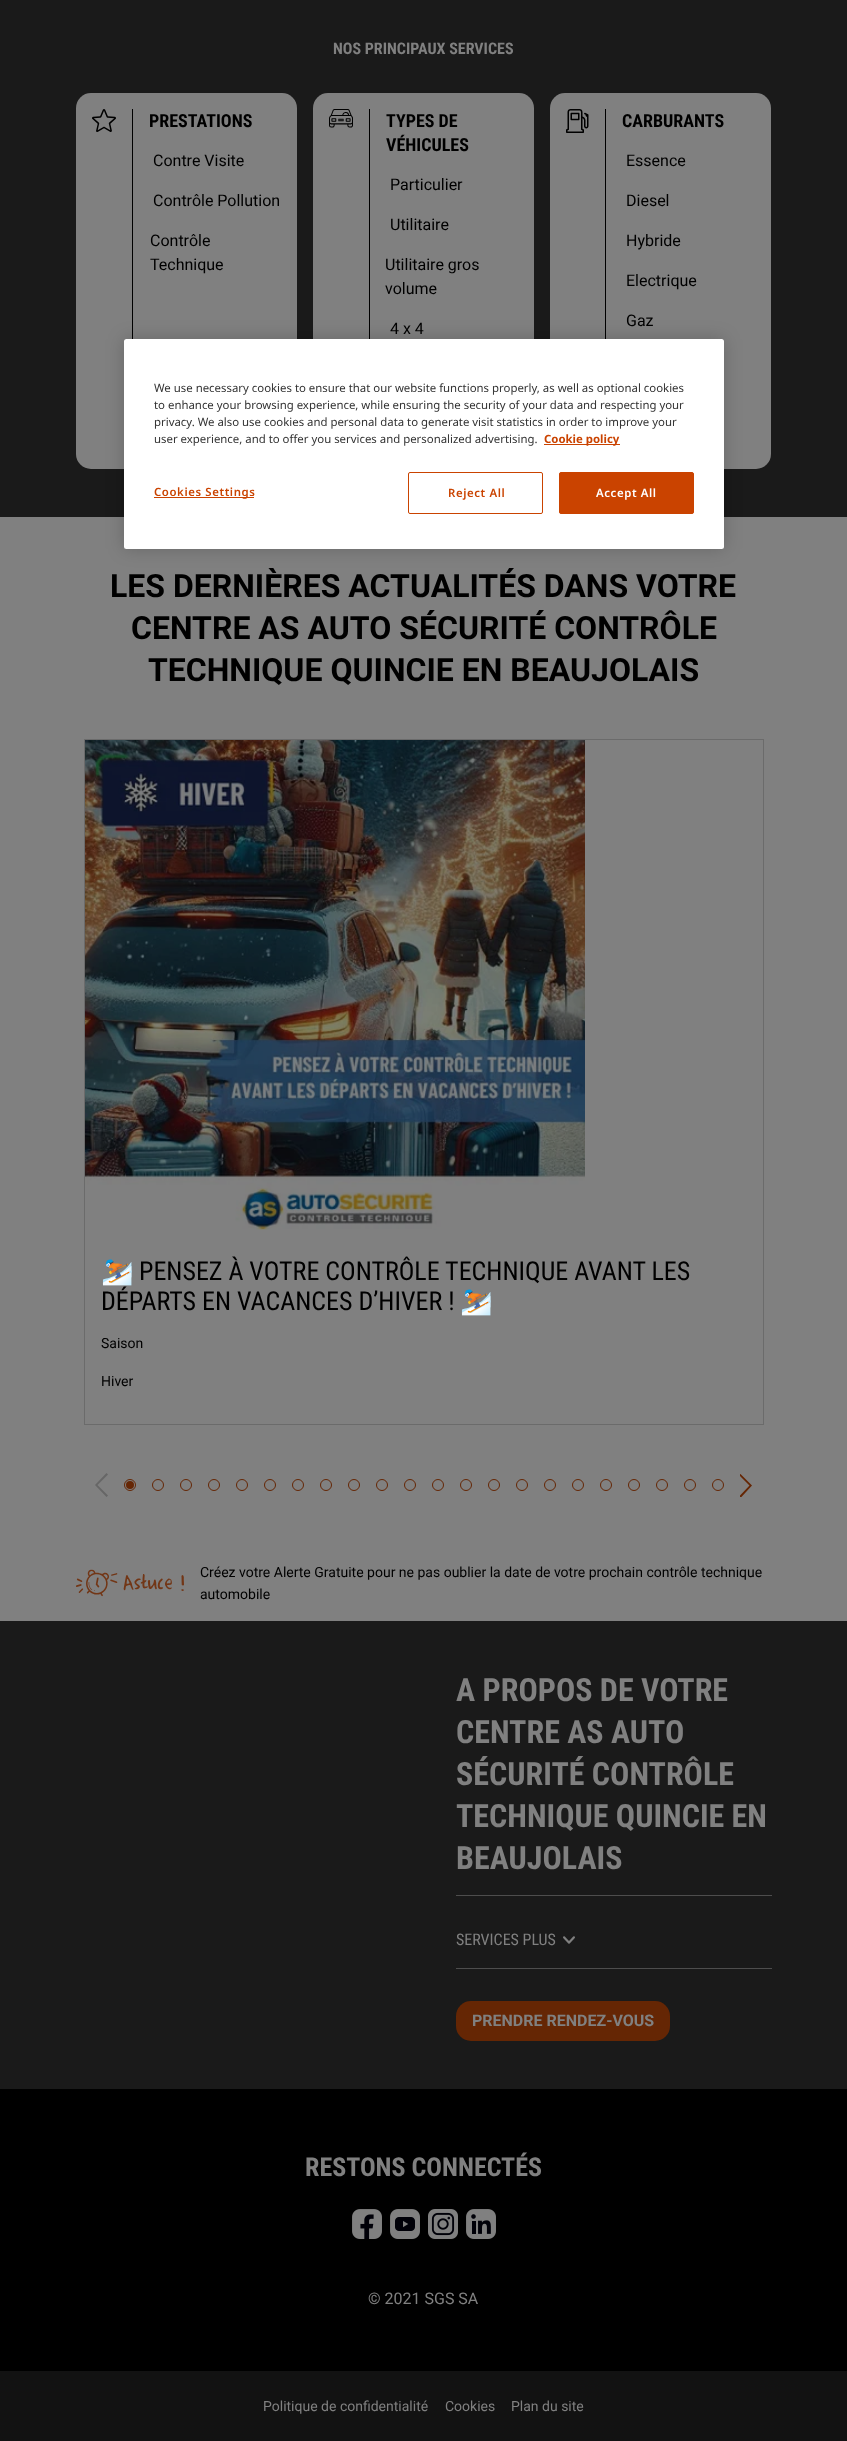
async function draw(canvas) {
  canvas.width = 847;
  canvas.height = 2441;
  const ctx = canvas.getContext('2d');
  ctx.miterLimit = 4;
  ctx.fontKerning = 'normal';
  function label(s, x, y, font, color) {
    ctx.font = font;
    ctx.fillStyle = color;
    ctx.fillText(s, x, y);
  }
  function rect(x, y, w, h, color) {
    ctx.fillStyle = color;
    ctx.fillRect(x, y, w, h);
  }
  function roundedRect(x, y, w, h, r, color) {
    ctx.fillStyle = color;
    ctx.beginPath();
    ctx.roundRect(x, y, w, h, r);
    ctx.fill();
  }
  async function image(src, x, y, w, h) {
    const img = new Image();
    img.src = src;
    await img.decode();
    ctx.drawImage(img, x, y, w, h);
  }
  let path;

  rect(0, 0, 847, 2441, '#808080');
  rect(0, 0, 847, 517, '#1a1a1a');
  label('NOS PRINCIPAUX SERVICES', 333, 54, 'bold 16px Roboto Condensed', '#808080');
  roundedRect(76, 93, 221, 376, 15, '#808080');
  rect(132, 109, 1, 230, '#000');
  await image('assets/img1.png', 92, 109, 24, 23);
  label('PRESTATIONS', 149, 127, 'bold 18px Roboto Condensed', '#000');
  label('Contre Visite', 153, 166, '16px Roboto', '#000');
  label('Contrôle Pollution', 153, 206, '16px Roboto', '#000');
  label('Contrôle', 150, 246, '16px Roboto', '#000');
  label('Technique', 150, 270, '16px Roboto', '#000');
  roundedRect(313, 93, 221, 376, 15, '#808080');
  rect(369, 109, 1, 230, '#000');
  await image('assets/img2.png', 329, 109, 24, 19);
  label('TYPES DE', 386, 127, 'bold 18px Roboto Condensed', '#000');
  label('VÉHICULES', 386, 151, 'bold 18px Roboto Condensed', '#000');
  label('Particulier', 390, 190, '16px Roboto', '#000');
  label('Utilitaire', 390, 230, '16px Roboto', '#000');
  label('Utilitaire gros', 385, 270, '16px Roboto', '#000');
  label('volume', 385, 294, '16px Roboto', '#000');
  label('4 x 4', 390, 334, '16px Roboto', '#000');
  roundedRect(550, 93, 221, 376, 15, '#808080');
  rect(605, 109, 1, 230, '#000');
  await image('assets/img3.png', 566, 109, 23, 24);
  label('CARBURANTS', 622, 127, 'bold 18px Roboto Condensed', '#000');
  label('Essence', 626, 166, '16px Roboto', '#000');
  label('Diesel', 626, 206, '16px Roboto', '#000');
  label('Hybride', 626, 246, '16px Roboto', '#000');
  label('Electrique', 626, 286, '16px Roboto', '#000');
  label('Gaz', 626, 326, '16px Roboto', '#000');
  label('LES DERNIÈRES ACTUALITÉS DANS VOTRE', 110, 597, 'bold 32px Roboto', '#000');
  label('CENTRE AS AUTO SÉCURITÉ CONTRÔLE', 131, 639, 'bold 32px Roboto', '#000');
  label('TECHNIQUE QUINCIE EN BEAUJOLAIS', 148, 681, 'bold 32px Roboto', '#000');
  ctx.strokeStyle = '#6b6b6b';
  ctx.strokeRect(84.5, 739.5, 679, 685);
  await image('assets/img4.png', 85, 740, 500, 490);
  label('⛷️', 101, 1280, '26px Noto Color Emoji', '#000');
  label('PENSEZ À VOTRE CONTRÔLE TECHNIQUE AVANT LES', 139, 1280, '26px Roboto Condensed', '#000');
  label('DÉPARTS EN VACANCES D’HIVER !', 101, 1310, '26px Roboto Condensed', '#000');
  label('⛷️', 460, 1310, '26px Noto Color Emoji', '#000');
  label('Saison', 101, 1348, '14px Roboto', '#000');
  label('Hiver', 101, 1386, '14px Roboto', '#000');
  ctx.fillStyle = '#666';
  path = new Path2D('M95 1485L106.5 1497L108 1495.5L97.5 1485L108 1474.5L106.5 1473Z');
  ctx.fill(path, 'evenodd');
  ctx.beginPath();
  ctx.arc(130, 1485, 5.5, 0, 2 * Math.PI);
  ctx.strokeStyle = '#652604';
  ctx.stroke();
  ctx.fillStyle = '#652604';
  ctx.beginPath();
  ctx.arc(130, 1485, 4, 0, 2 * Math.PI);
  ctx.fill();
  ctx.beginPath();
  ctx.arc(158, 1485, 5.5, 0, 2 * Math.PI);
  ctx.stroke();
  ctx.beginPath();
  ctx.arc(186, 1485, 5.5, 0, 2 * Math.PI);
  ctx.stroke();
  ctx.beginPath();
  ctx.arc(214, 1485, 5.5, 0, 2 * Math.PI);
  ctx.stroke();
  ctx.beginPath();
  ctx.arc(242, 1485, 5.5, 0, 2 * Math.PI);
  ctx.stroke();
  ctx.beginPath();
  ctx.arc(270, 1485, 5.5, 0, 2 * Math.PI);
  ctx.stroke();
  ctx.beginPath();
  ctx.arc(298, 1485, 5.5, 0, 2 * Math.PI);
  ctx.stroke();
  ctx.beginPath();
  ctx.arc(326, 1485, 5.5, 0, 2 * Math.PI);
  ctx.stroke();
  ctx.beginPath();
  ctx.arc(354, 1485, 5.5, 0, 2 * Math.PI);
  ctx.stroke();
  ctx.beginPath();
  ctx.arc(382, 1485, 5.5, 0, 2 * Math.PI);
  ctx.stroke();
  ctx.beginPath();
  ctx.arc(410, 1485, 5.5, 0, 2 * Math.PI);
  ctx.stroke();
  ctx.beginPath();
  ctx.arc(438, 1485, 5.5, 0, 2 * Math.PI);
  ctx.stroke();
  ctx.beginPath();
  ctx.arc(466, 1485, 5.5, 0, 2 * Math.PI);
  ctx.stroke();
  ctx.beginPath();
  ctx.arc(494, 1485, 5.5, 0, 2 * Math.PI);
  ctx.stroke();
  ctx.beginPath();
  ctx.arc(522, 1485, 5.5, 0, 2 * Math.PI);
  ctx.stroke();
  ctx.beginPath();
  ctx.arc(550, 1485, 5.5, 0, 2 * Math.PI);
  ctx.stroke();
  ctx.beginPath();
  ctx.arc(578, 1485, 5.5, 0, 2 * Math.PI);
  ctx.stroke();
  ctx.beginPath();
  ctx.arc(606, 1485, 5.5, 0, 2 * Math.PI);
  ctx.stroke();
  ctx.beginPath();
  ctx.arc(634, 1485, 5.5, 0, 2 * Math.PI);
  ctx.stroke();
  ctx.beginPath();
  ctx.arc(662, 1485, 5.5, 0, 2 * Math.PI);
  ctx.stroke();
  ctx.beginPath();
  ctx.arc(690, 1485, 5.5, 0, 2 * Math.PI);
  ctx.stroke();
  ctx.beginPath();
  ctx.arc(718, 1485, 5.5, 0, 2 * Math.PI);
  ctx.stroke();
  ctx.save();
  ctx.beginPath();
  ctx.rect(740, 1473, 13, 24);
  ctx.clip();
  path = new Path2D('M752 1485.5L740.5 1474L739 1475L749.5 1485.5L739 1496.5L740.5 1498Z');
  ctx.fill(path, 'evenodd');
  ctx.restore();
  await image('assets/img5.png', 76, 1569, 108, 28);
  label('Créez votre Alerte Gratuite pour ne pas oublier la date de votre prochain contrôle technique', 200, 1577, '14px Roboto', '#000');
  label('automobile', 200, 1599, '14px Roboto', '#000');
  rect(0, 1621, 847, 468, '#1a1a1a');
  label('A PROPOS DE VOTRE', 456, 1701, 'bold 32px Roboto Condensed', '#808080');
  label('CENTRE AS AUTO', 456, 1743, 'bold 32px Roboto Condensed', '#808080');
  label('SÉCURITÉ CONTRÔLE', 456, 1785, 'bold 32px Roboto Condensed', '#808080');
  label('TECHNIQUE QUINCIE EN', 456, 1827, 'bold 32px Roboto Condensed', '#808080');
  label('BEAUJOLAIS', 456, 1869, 'bold 32px Roboto Condensed', '#808080');
  rect(456, 1895, 316, 1, '#4d4d4d');
  label('SERVICES PLUS', 456, 1945, '16px Roboto Condensed', '#808080');
  await image('assets/img6.png', 563, 1936, 12, 8);
  rect(456, 1968, 316, 1, '#4d4d4d');
  roundedRect(456, 2001, 214, 40, 15, '#652604');
  label('PRENDRE RENDEZ-VOUS', 472, 2026, 'bold 16px Roboto', '#808080');
  rect(0, 2089, 847, 282, '#000');
  label('RESTONS CONNECTÉS', 305, 2176, 'bold 26px Roboto Condensed', '#808080');
  await image('assets/img7.png', 352, 2209, 30, 30);
  await image('assets/img8.png', 390, 2209, 30, 30);
  await image('assets/img9.png', 428, 2209, 30, 30);
  await image('assets/img10.png', 466, 2209, 30, 30);
  label('© 2021 SGS SA', 368, 2304, '16px Roboto', '#808080');
  rect(0, 2371, 847, 70, '#121212');
  label('Politique de confidentialité', 263, 2411, '14px Roboto', '#808080');
  label('Cookies', 445, 2411, '14px Roboto', '#808080');
  label('Plan du site', 511, 2411, '14px Roboto', '#808080');
  ctx.fillStyle = '#00000033';
  ctx.filter = 'blur(9px)';
  ctx.beginPath();
  ctx.roundRect(124, 339, 600, 210, 2.5);
  ctx.fill();
  ctx.filter = 'none';
  roundedRect(124, 339, 600, 210, 2.5, '#fff');
  label('We use necessary cookies to ensure that our website functions properly, as well as optional cookies', 154, 392, '11.4px Noto Sans', '#333');
  label('to enhance your browsing experience, while ensuring the security of your data and respecting your', 154, 409, '11.4px Noto Sans', '#333');
  label('privacy. We also use cookies and personal data to generate visit statistics in order to improve your', 154, 426, '11.4px Noto Sans', '#333');
  label('user experience, and to offer you services and personalized advertising.', 154, 443, '11.4px Noto Sans', '#333');
  rect(544, 444, 76, 1, '#ca4300');
  label('Cookie policy', 544, 443, 'bold 11.4px Noto Sans', '#ca4300');
  rect(154, 497, 100, 1, '#ca4300');
  ctx.letterSpacing = '0.6px';
  label('Cookies Settings', 154, 496, '600 11.4px Noto Sans', '#ca4300');
  ctx.beginPath();
  ctx.roundRect(408.5, 472.5, 134, 41, 1.5);
  ctx.strokeStyle = '#ca4300';
  ctx.stroke();
  label('Reject All', 448, 497, '600 11.4px Noto Sans', '#ca4300');
  ctx.beginPath();
  ctx.roundRect(559.5, 472.5, 134, 41, 1.5);
  ctx.fill();
  ctx.stroke();
  label('Accept All', 596, 497, '600 11.4px Noto Sans', '#fff');
}

draw(document.querySelector('canvas'));
